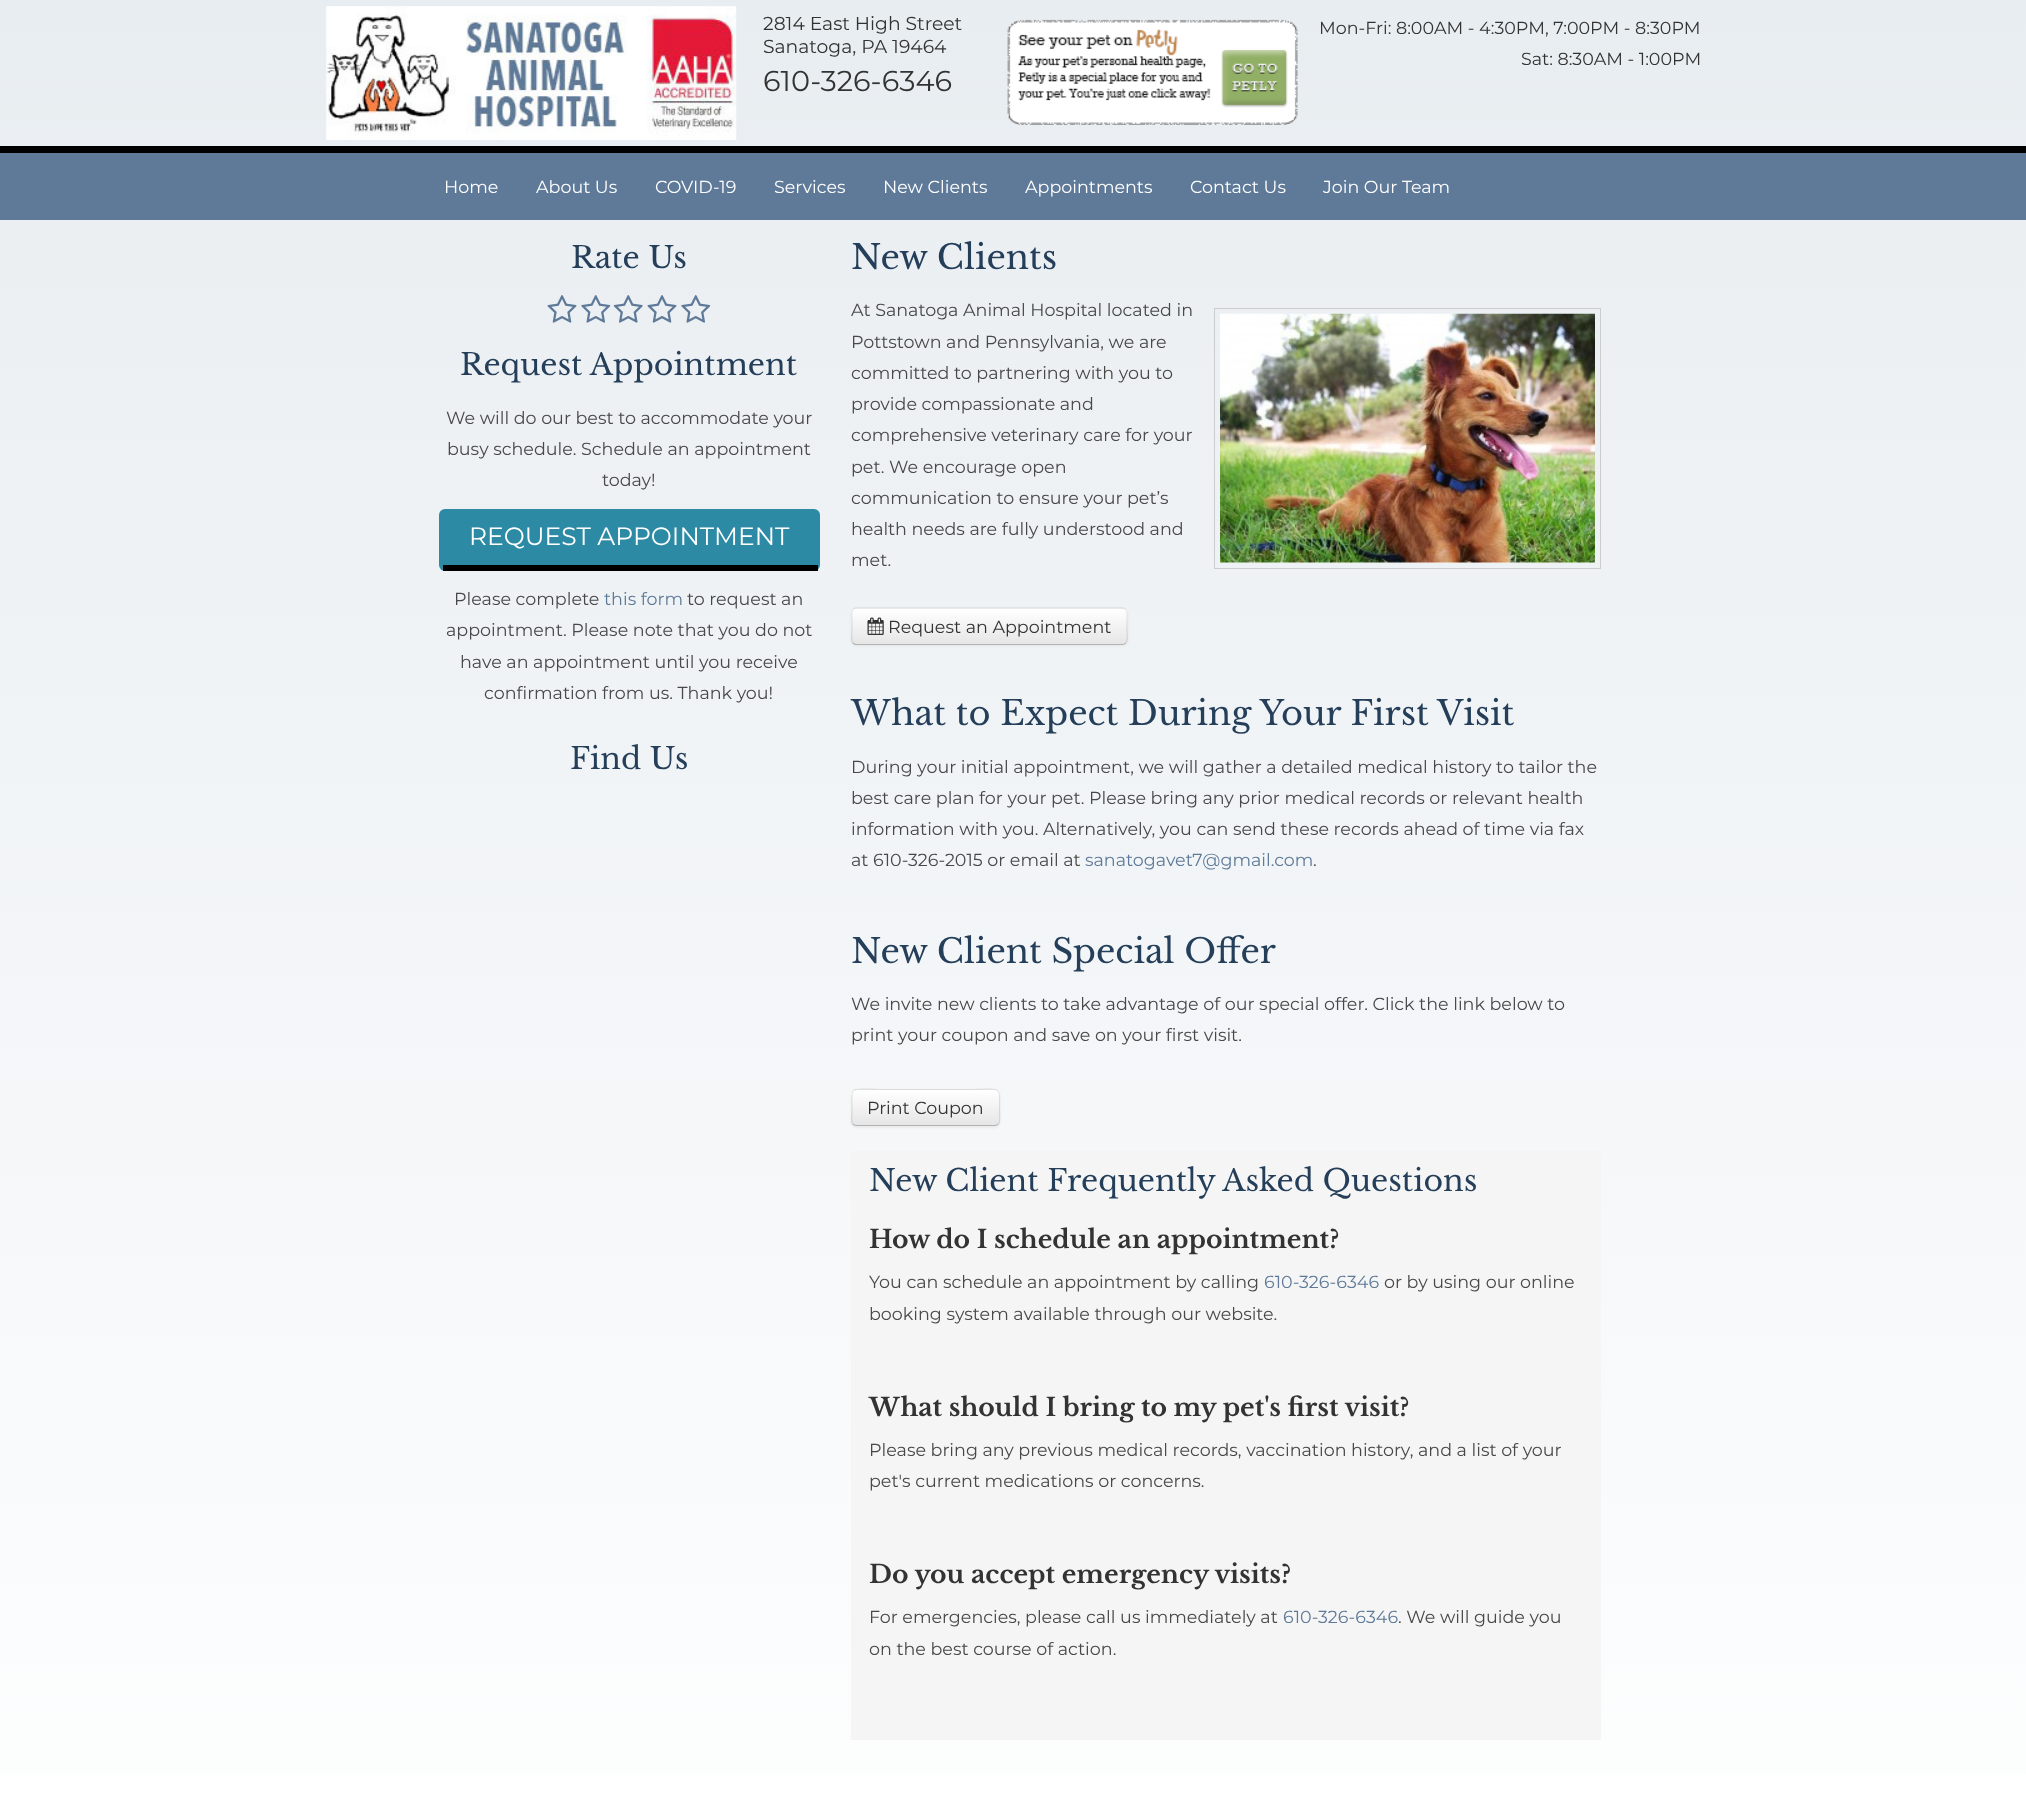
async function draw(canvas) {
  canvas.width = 2026;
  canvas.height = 1793;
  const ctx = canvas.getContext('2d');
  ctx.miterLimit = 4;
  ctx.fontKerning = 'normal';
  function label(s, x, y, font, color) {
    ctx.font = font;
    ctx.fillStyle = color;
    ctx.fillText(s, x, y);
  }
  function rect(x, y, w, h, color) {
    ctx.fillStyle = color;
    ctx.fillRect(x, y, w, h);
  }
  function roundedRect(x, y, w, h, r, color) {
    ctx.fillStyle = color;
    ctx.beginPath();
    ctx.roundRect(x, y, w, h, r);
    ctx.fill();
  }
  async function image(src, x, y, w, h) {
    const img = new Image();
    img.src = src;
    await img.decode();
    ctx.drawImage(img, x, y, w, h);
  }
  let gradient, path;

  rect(0, 0, 2026, 1793, '#fff');
  gradient = ctx.createLinearGradient(1013, 0, 1013, 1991);
  gradient.addColorStop(0, '#e8edf1');
  gradient.addColorStop(1, '#fff');
  ctx.fillStyle = gradient;
  ctx.fillRect(0, 0, 2026, 1775);
  await image('assets/img1.png', 326, 6, 411, 134);
  label('2814 East High Street', 763, 30, '100 18.75px Montserrat', '#333');
  label('Sanatoga, PA 19464', 763, 53, '100 18.75px Montserrat', '#333');
  label('610-326-6346', 763, 91, '100 28.75px Montserrat', '#333');
  await image('assets/img2.png', 1007, 19, 291, 106);
  label('Mon-Fri: 8:00AM - 4:30PM, 7:00PM - 8:30PM', 1319, 34, '100 17.5px Montserrat', '#333');
  label('Sat: 8:30AM - 1:00PM', 1521, 65, '100 17.5px Montserrat', '#333');
  rect(0, 153, 2026, 67, '#5f7a98');
  rect(0, 146, 2026, 7, '#000');
  label('Home', 444, 193, '100 17.5px Montserrat', '#fff');
  label('About Us', 536, 193, '100 17.5px Montserrat', '#fff');
  label('COVID-19', 655, 193, '100 17.5px Montserrat', '#fff');
  label('Services', 774, 193, '100 17.5px Montserrat', '#fff');
  label('New Clients', 883, 193, '100 17.5px Montserrat', '#fff');
  label('Appointments', 1025, 193, '100 17.5px Montserrat', '#fff');
  label('Contact Us', 1190, 193, '100 17.5px Montserrat', '#fff');
  label('Join Our Team', 1323, 193, '100 17.5px Montserrat', '#fff');
  label('Rate Us', 571, 268, '30px Libre Baskerville', '#253f5a');
  await image('assets/img3.png', 547, 295, 30, 28);
  await image('assets/img4.png', 581, 295, 30, 28);
  await image('assets/img5.png', 613, 295, 30, 28);
  await image('assets/img3.png', 647, 295, 30, 28);
  await image('assets/img4.png', 681, 295, 30, 28);
  label('Request Appointment', 460, 375, '30px Libre Baskerville', '#253f5a');
  label('We will do our best to accommodate your', 446, 424, '100 17.5px Montserrat', '#484848');
  label('busy schedule. Schedule an appointment', 447, 455, '100 17.5px Montserrat', '#484848');
  label('today!', 602, 486, '100 17.5px Montserrat', '#484848');
  roundedRect(439, 509, 381, 62, 6, '#2c8aa4');
  rect(443, 565, 375, 6, '#000');
  label('REQUEST APPOINTMENT', 469, 545, '100 25px Montserrat', '#fff');
  label('Please complete', 454, 605, '100 17.5px Montserrat', '#484848');
  label('this form', 604, 605, '100 17.5px Montserrat', '#5e7a98');
  label('to request an', 687, 605, '100 17.5px Montserrat', '#484848');
  label('appointment. Please note that you do not', 446, 636, '100 17.5px Montserrat', '#484848');
  label('have an appointment until you receive', 460, 668, '100 17.5px Montserrat', '#484848');
  label('confirmation from us. Thank you!', 484, 699, '100 17.5px Montserrat', '#484848');
  label('Find Us', 570, 769, '30px Libre Baskerville', '#253f5a');
  label('New Clients', 851, 269, '33.75px Libre Baskerville', '#253f5a');
  label('At Sanatoga Animal Hospital located in', 851, 316, '100 17.5px Montserrat', '#484848');
  ctx.strokeStyle = '#ccc';
  ctx.strokeRect(1214.5, 308.5, 386, 260);
  await image('assets/img6.png', 1220, 313, 375, 250);
  label('Pottstown and Pennsylvania, we are', 851, 348, '100 17.5px Montserrat', '#484848');
  label('committed to partnering with you to', 851, 379, '100 17.5px Montserrat', '#484848');
  label('provide compassionate and', 851, 410, '100 17.5px Montserrat', '#484848');
  label('comprehensive veterinary care for your', 851, 441, '100 17.5px Montserrat', '#484848');
  label('pet. We encourage open', 851, 473, '100 17.5px Montserrat', '#484848');
  label('communication to ensure your pet’s', 851, 504, '100 17.5px Montserrat', '#484848');
  label('health needs are fully understood and', 851, 535, '100 17.5px Montserrat', '#484848');
  label('met.', 851, 566, '100 17.5px Montserrat', '#484848');
  ctx.fillStyle = '#0000000d';
  ctx.filter = 'blur(1px)';
  ctx.beginPath();
  ctx.roundRect(851, 609, 277, 37, 5);
  ctx.fill();
  ctx.filter = 'none';
  roundedRect(851, 608, 277, 37, 5, '#f5f5f5');
  ctx.save();
  ctx.beginPath();
  ctx.roundRect(851, 608, 277, 37, 5);
  ctx.clip();
  gradient = ctx.createLinearGradient(989, 609, 989, 644);
  gradient.addColorStop(0, '#fff');
  gradient.addColorStop(1, '#e6e6e6');
  ctx.fillStyle = gradient;
  ctx.fillRect(851, 609, 277, 35);
  ctx.restore();
  path = new Path2D('M1125.5 643C1125 644 1123.5 644.5 1122.5 644.5H856C855 644.5 854 644 853 643');
  ctx.strokeStyle = '#b3b3b3';
  ctx.lineWidth = 1.2;
  ctx.stroke(path);
  path = new Path2D('M853 643C850.5 640.5 852 634 852 631V621.5C852 618.5 850 608 856 608H1122.5C1129 608 1127 618.5 1127 621.5V631C1127 634 1128.5 640.5 1125.5 643');
  ctx.strokeStyle = '#0000001a';
  ctx.stroke(path);
  await image('assets/img7.png', 867, 617, 17, 18);
  label('Request an Appointment', 888, 633, '100 17.5px Montserrat', '#333');
  label('What to Expect During Your First Visit', 851, 725, '33.75px Libre Baskerville', '#253f5a');
  label('During your initial appointment, we will gather a detailed medical history to tailor the', 851, 773, '100 17.5px Montserrat', '#484848');
  label('best care plan for your pet. Please bring any prior medical records or relevant health', 851, 804, '100 17.5px Montserrat', '#484848');
  label('information with you. Alternatively, you can send these records ahead of time via fax', 851, 835, '100 17.5px Montserrat', '#484848');
  label('at 610-326-2015 or email at', 851, 866, '100 17.5px Montserrat', '#484848');
  label('sanatogavet7@gmail.com', 1085, 866, '100 17.5px Montserrat', '#5e7a98');
  label('.', 1313, 866, '100 17.5px Montserrat', '#484848');
  label('New Client Special Offer', 851, 963, '33.75px Libre Baskerville', '#253f5a');
  label('We invite new clients to take advantage of our special offer. Click the link below to', 851, 1010, '100 17.5px Montserrat', '#484848');
  label('print your coupon and save on your first visit.', 851, 1041, '100 17.5px Montserrat', '#484848');
  ctx.fillStyle = '#0000000d';
  ctx.filter = 'blur(1px)';
  ctx.beginPath();
  ctx.roundRect(851, 1090, 149, 38, 5);
  ctx.fill();
  ctx.filter = 'none';
  roundedRect(851, 1089, 149, 37, 5, '#f5f5f5');
  ctx.save();
  ctx.beginPath();
  ctx.roundRect(851, 1089, 149, 37, 5);
  ctx.clip();
  gradient = ctx.createLinearGradient(926, 1090, 926, 1125);
  gradient.addColorStop(0, '#fff');
  gradient.addColorStop(1, '#e6e6e6');
  ctx.fillStyle = gradient;
  ctx.fillRect(851, 1090, 149, 35);
  ctx.restore();
  path = new Path2D('M998 1124.5L995 1125.5H856L853 1124.5');
  ctx.strokeStyle = '#b3b3b3';
  ctx.stroke(path);
  path = new Path2D('M853 1124.5C850.5 1121.5 852 1115 852 1112C852 1084 847.5 1089.5 879.5 1089.5H972C1003.5 1089.5 999.5 1084 999.5 1112C999.5 1115 1001 1121.5 998 1124.5');
  ctx.strokeStyle = '#0000001a';
  ctx.stroke(path);
  label('Print Coupon', 867, 1114, '100 17.5px Montserrat', '#333');
  rect(851, 1151, 750, 589, '#f5f5f5');
  label('New Client Frequently Asked Questions', 869, 1191, '30px Libre Baskerville', '#253f5a');
  label('How do I schedule an appointment?', 869, 1248, 'bold 25px Libre Baskerville', '#333');
  label('You can schedule an appointment by calling', 869, 1288, '100 17.5px Montserrat', '#484848');
  label('610-326-6346', 1264, 1288, '100 17.5px Montserrat', '#5e7a98');
  label('or by using our online', 1384, 1288, '100 17.5px Montserrat', '#484848');
  label('booking system available through our website.', 869, 1320, '100 17.5px Montserrat', '#484848');
  label('What should I bring to my pet\'s first visit?', 869, 1416, 'bold 25px Libre Baskerville', '#333');
  label('Please bring any previous medical records, vaccination history, and a list of your', 869, 1456, '100 17.5px Montserrat', '#484848');
  label('pet\'s current medications or concerns.', 869, 1487, '100 17.5px Montserrat', '#484848');
  label('Do you accept emergency visits?', 869, 1583, 'bold 25px Libre Baskerville', '#333');
  label('For emergencies, please call us immediately at', 869, 1623, '100 17.5px Montserrat', '#484848');
  label('610-326-6346', 1283, 1623, '100 17.5px Montserrat', '#5e7a98');
  label('. We will guide you', 1398, 1623, '100 17.5px Montserrat', '#484848');
  label('on the best course of action.', 869, 1655, '100 17.5px Montserrat', '#484848');
}

draw(document.querySelector('canvas'));
